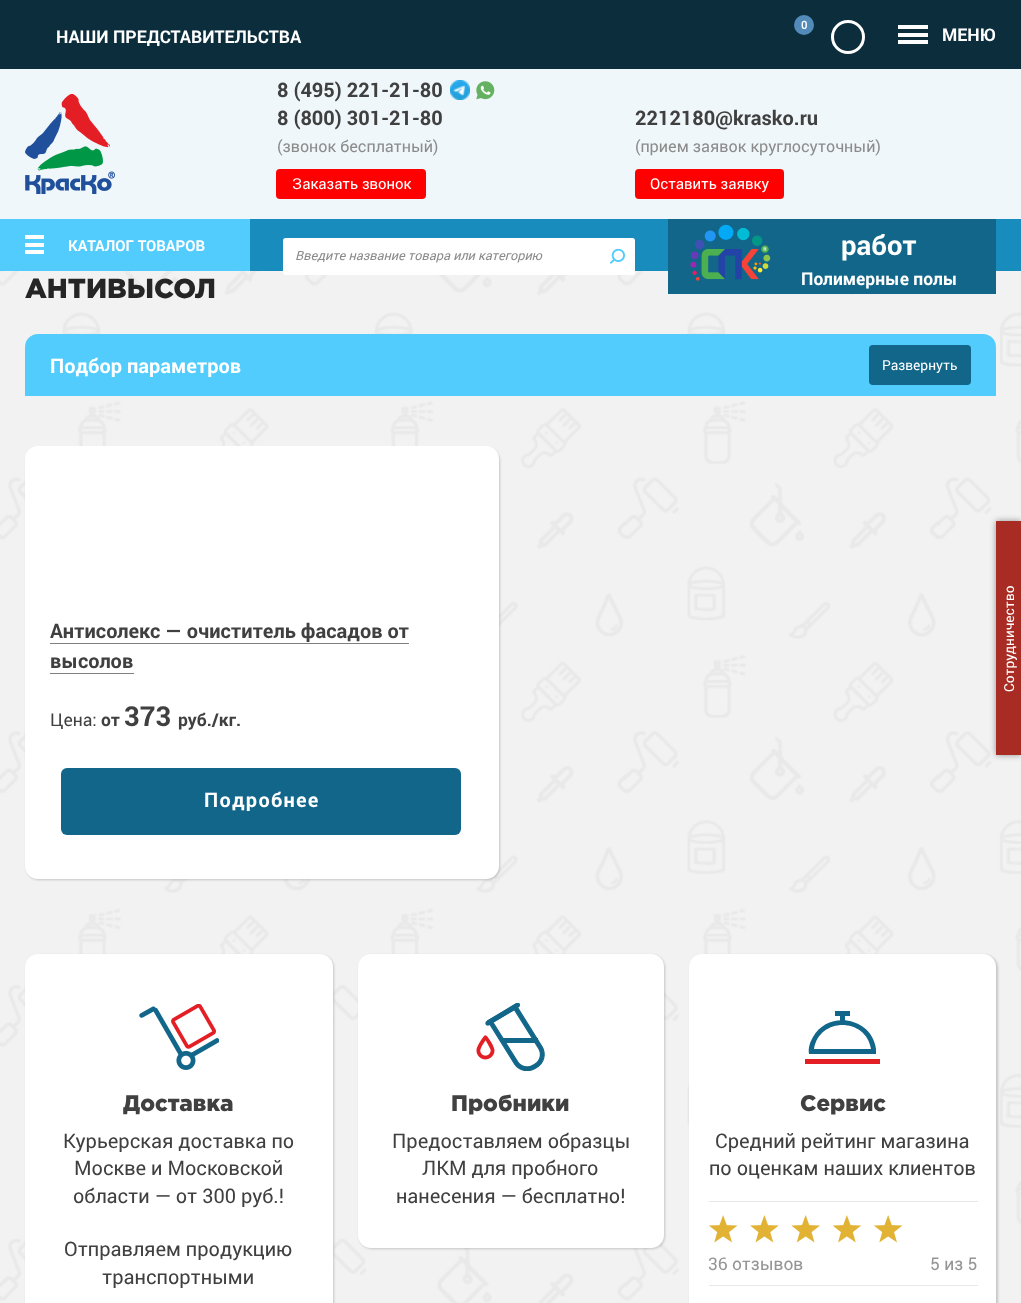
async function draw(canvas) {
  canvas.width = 1021;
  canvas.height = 1303;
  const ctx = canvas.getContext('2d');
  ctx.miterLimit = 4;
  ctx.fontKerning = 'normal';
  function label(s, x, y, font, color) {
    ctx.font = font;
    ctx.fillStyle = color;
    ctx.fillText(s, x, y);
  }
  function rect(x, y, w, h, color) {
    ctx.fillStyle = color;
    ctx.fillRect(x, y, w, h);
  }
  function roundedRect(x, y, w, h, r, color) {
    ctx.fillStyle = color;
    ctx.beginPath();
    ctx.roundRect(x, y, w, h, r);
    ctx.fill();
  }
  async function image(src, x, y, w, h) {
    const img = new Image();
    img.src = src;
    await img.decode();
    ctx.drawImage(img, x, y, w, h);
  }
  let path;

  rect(0, 0, 1021, 1303, '#fff');
  await image('assets/img1.png', 0, 271, 1021, 1032);
  rect(0, 0, 1021, 69, '#0b2d3c');
  label('НАШИ ПРЕДСТАВИТЕЛЬСТВА', 56, 43, 'bold 17.5px Roboto', '#fff');
  ctx.fillStyle = '#528bb9';
  ctx.beginPath();
  ctx.arc(804, 25, 10, 0, 2 * Math.PI);
  ctx.fill();
  label('0', 801, 29, 'bold 11px "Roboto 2"', '#fff');
  ctx.beginPath();
  ctx.arc(848, 37, 15.5, 0, 2 * Math.PI);
  ctx.strokeStyle = '#fff';
  ctx.lineWidth = 3;
  ctx.stroke();
  rect(898, 33, 30, 4, '#fff');
  rect(898, 25, 30, 4, '#fff');
  rect(898, 40, 30, 4, '#fff');
  label('МЕНЮ', 942, 41, 'bold 17.5px Roboto', '#fff');
  rect(0, 69, 1021, 150, '#f0f7fa');
  await image('assets/img2.png', 25, 94, 90, 100);
  label('8 (495) 221-21-80', 277, 97, 'bold 20px Roboto', '#404040');
  await image('assets/img3.png', 450, 80, 20, 20);
  await image('assets/img4.png', 476, 81, 19, 19);
  label('8 (800) 301-21-80', 277, 125, 'bold 20px Roboto', '#404040');
  label('(звонок бесплатный)', 277, 152, '16.25px Roboto', '#8c8c8c');
  roundedRect(276, 169, 150, 30, 4, '#f00');
  label('Заказать звонок', 292, 189, '15px Roboto', '#fff');
  label('2212180@krasko.ru', 635, 125, 'bold 20px Roboto', '#404040');
  label('(прием заявок круглосуточный)', 635, 152, '16.25px Roboto', '#8c8c8c');
  roundedRect(635, 169, 149, 30, 4, '#f00');
  label('Оставить заявку', 650, 189, '15px Roboto', '#fff');
  rect(250, 219, 771, 52, '#188cbc');
  rect(0, 219, 250, 52, '#52ccfd');
  rect(25, 235, 19, 4, '#fff');
  rect(25, 243, 19, 4, '#fff');
  rect(25, 250, 19, 4, '#fff');
  label('КАТАЛОГ ТОВАРОВ', 68, 251, 'bold 15px Roboto', '#fff');
  roundedRect(283, 238, 352, 37, 2.5, '#fff');
  label('Введите название товара или категорию', 295, 260, 'italic 12.75px Roboto', '#8c8c8c');
  await image('assets/img5.png', 610, 249, 15, 15);
  rect(668, 219, 328, 75, '#12668a');
  await image('assets/img6.png', 690, 224, 81, 57);
  label('работ', 841, 255, 'bold 27.5px Roboto', '#fff');
  label('Полимерные полы', 801, 285, 'bold 17.5px Roboto', '#fff');
  label('АНТИВЫСОЛ', 25, 298, '900 27.5px Gotham', '#252525');
  ctx.fillStyle = '#52ccfd';
  ctx.beginPath();
  ctx.roundRect(25, 334, 971, 62, [13, 13, 0, 0]);
  ctx.fill();
  label('Подбор параметров', 50, 373, 'bold 20px Roboto', '#fff');
  roundedRect(869, 345, 102, 40, 4, '#12668a');
  label('Развернуть', 882, 370, '13.75px Roboto', '#fff');
  ctx.fillStyle = '#171a1f33';
  ctx.filter = 'blur(1px)';
  ctx.beginPath();
  ctx.roundRect(26, 448, 474, 432, 13);
  ctx.fill();
  ctx.filter = 'none';
  roundedRect(25, 446, 474, 433, 13, '#fff');
  label('Антисолекс — очиститель фасадов от', 50, 638, 'bold 20px Roboto', '#404040');
  rect(50, 643, 359, 1, '#7f7f7f');
  label('высолов', 50, 668, 'bold 20px Roboto', '#404040');
  rect(50, 673, 84, 1, '#7f7f7f');
  label('Цена:', 50, 726, '17.5px Roboto', '#404040');
  label('от', 101, 726, 'bold 17.5px Roboto', '#404040');
  label('373', 124, 726, 'bold 27.5px Roboto', '#404040');
  label('руб./кг.', 178, 726, 'bold 17.5px Roboto', '#404040');
  roundedRect(61, 768, 400, 67, 6, '#12668a');
  ctx.letterSpacing = '1.25px';
  label('Подробнее', 204, 807, 'bold 20px Roboto', '#fff');
  ctx.fillStyle = '#171a1f33';
  ctx.filter = 'blur(1px)';
  ctx.beginPath();
  ctx.roundRect(26, 955, 308, 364, 13);
  ctx.fill();
  ctx.filter = 'none';
  roundedRect(25, 954, 308, 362, 13, '#fff');
  await image('assets/img7.png', 139, 1004, 80, 66);
  ctx.letterSpacing = '0px';
  label('Доставка', 123, 1111, '900 22.5px Gotham', '#404040');
  label('Курьерская доставка по', 63, 1148, '20px Roboto', '#404040');
  label('Москве и Московской', 74, 1175, '20px Roboto', '#404040');
  label('области — от 300 руб.!', 73, 1203, '20px Roboto', '#404040');
  label('Отправляем продукцию', 64, 1256, '20px Roboto', '#404040');
  label('транспортными', 102, 1284, '20px Roboto', '#404040');
  ctx.fillStyle = '#171a1f33';
  ctx.filter = 'blur(1px)';
  ctx.beginPath();
  ctx.roundRect(359, 955, 306, 294, 13);
  ctx.fill();
  ctx.filter = 'none';
  roundedRect(358, 954, 306, 294, 13, '#fff');
  await image('assets/img8.png', 476, 1003, 69, 68);
  label('Пробники', 451, 1111, '900 22.5px Gotham', '#404040');
  label('Предоставляем образцы', 392, 1148, '20px Roboto', '#404040');
  label('ЛКМ для пробного', 422, 1175, '20px Roboto', '#404040');
  label('нанесения — бесплатно!', 396, 1203, '20px Roboto', '#404040');
  ctx.fillStyle = '#171a1f33';
  ctx.filter = 'blur(1px)';
  ctx.beginPath();
  ctx.roundRect(690, 955, 308, 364, 13);
  ctx.fill();
  ctx.filter = 'none';
  roundedRect(689, 954, 307, 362, 13, '#fff');
  rect(835, 1011, 15, 5, '#12668a');
  path = new Path2D('M876 1049C872 1017 828 1010 813 1037C810 1042 808 1048 809 1054H876ZM814 1049C819 1017 866 1017 871 1049Z');
  ctx.fill(path);
  rect(840, 1016, 5, 5, '#12668a');
  rect(805, 1059, 75, 5, '#e31e24');
  label('Сервис', 800, 1111, '900 22.5px Gotham', '#404040');
  label('Средний рейтинг магазина', 715, 1148, '20px Roboto', '#404040');
  label('по оценкам наших клиентов', 709, 1175, '20px Roboto', '#404040');
  rect(709, 1201, 269, 1, '#e8e8e8');
  rect(709, 1285, 269, 1, '#e8e8e8');
  await image('assets/img9.png', 709, 1215, 29, 28);
  await image('assets/img10.png', 750, 1215, 29, 28);
  await image('assets/img11.png', 791, 1215, 29, 28);
  await image('assets/img12.png', 833, 1215, 28, 28);
  await image('assets/img9.png', 874, 1215, 29, 28);
  label('36 отзывов', 708, 1270, '17.5px Roboto', '#959595');
  label('5 из 5', 930, 1270, '17.5px Roboto', '#959595');
  ctx.fillStyle = '#00000066';
  ctx.filter = 'blur(3px)';
  ctx.beginPath();
  ctx.rect(996, 521, 25, 234);
  ctx.fill();
  ctx.filter = 'none';
  rect(996, 521, 25, 234, '#a82c24');
  ctx.font = '13.75px Roboto';
  ctx.fillStyle = '#fff';
  ctx.save();
  ctx.translate(1014, 692);
  ctx.rotate(-90 * Math.PI / 180);
  ctx.fillText('Сотрудничество', 0, 0);
  ctx.restore();
}

draw(document.querySelector('canvas'));
